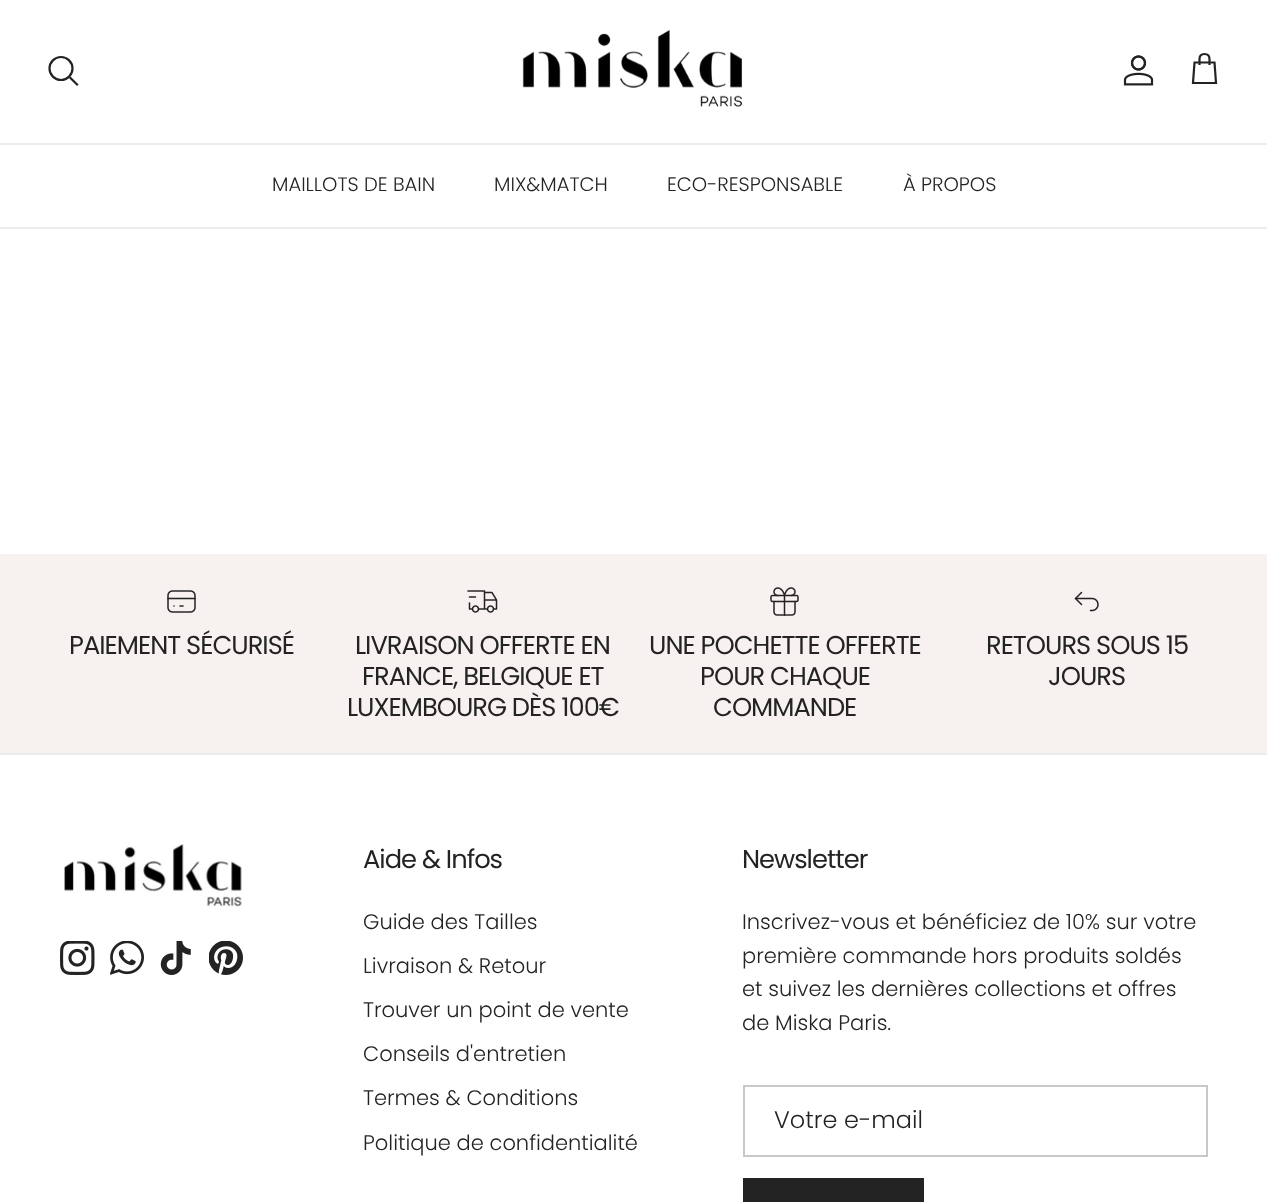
async function draw(canvas) {
  canvas.width = 1267;
  canvas.height = 1202;
  const ctx = canvas.getContext('2d');
  ctx.miterLimit = 4;
  ctx.fontKerning = 'normal';
  function label(s, x, y, font, color) {
    ctx.font = font;
    ctx.fillStyle = color;
    ctx.fillText(s, x, y);
  }
  function rect(x, y, w, h, color) {
    ctx.fillStyle = color;
    ctx.fillRect(x, y, w, h);
  }
  async function image(src, x, y, w, h) {
    const img = new Image();
    img.src = src;
    await img.decode();
    ctx.drawImage(img, x, y, w, h);
  }
  let path;

  rect(0, 0, 1267, 1202, '#fff');
  rect(0, 143, 1267, 2, '#ececec');
  ctx.beginPath();
  ctx.arc(61, 68.5, 11.5, 0, 2 * Math.PI);
  ctx.strokeStyle = '#232323';
  ctx.lineWidth = 2.2;
  ctx.stroke();
  path = new Path2D('M70.5 78L77 84.5');
  ctx.lineCap = 'square';
  ctx.stroke(path);
  await image('assets/img1.png', 522, 30, 221, 77);
  await image('assets/img2.png', 1123, 55, 31, 31);
  path = new Path2D('M1209.5 65V59C1209.5 56 1207.5 54 1204.5 54C1201.5 54 1199.5 56 1199.5 59V65M1194.5 62.5H1214.5L1216 83H1193Z');
  ctx.lineCap = 'butt';
  ctx.stroke(path);
  rect(0, 227, 1267, 2, '#ececec');
  label('MAILLOTS DE BAIN', 272, 191, '300 19.5px Poppins', '#232323');
  label('MIX&MATCH', 494, 191, '300 19.5px Poppins', '#232323');
  label('ECO-RESPONSABLE', 667, 191, '300 19.5px Poppins', '#232323');
  label('À PROPOS', 903, 191, '300 19.5px Poppins', '#232323');
  rect(0, 554, 1267, 199, '#f7f1f0');
  await image('assets/img3.png', 167, 590, 29, 23);
  ctx.letterSpacing = '-1px';
  label('PAIEMENT SÉCURISÉ', 69, 654, '25.75px Poppins', '#232323');
  await image('assets/img4.png', 467, 590, 31, 23);
  label('LIVRAISON OFFERTE EN', 355, 654, '25.75px Poppins', '#232323');
  label('FRANCE, BELGIQUE ET', 362, 685, '25.75px Poppins', '#232323');
  label('LUXEMBOURG DÈS 100€', 347, 716, '25.75px Poppins', '#232323');
  await image('assets/img5.png', 770, 587, 29, 29);
  label('UNE POCHETTE OFFERTE', 649, 654, '25.75px Poppins', '#232323');
  label('POUR CHAQUE', 700, 685, '25.75px Poppins', '#232323');
  label('COMMANDE', 713, 716, '25.75px Poppins', '#232323');
  await image('assets/img6.png', 1074, 591, 25, 21);
  label('RETOURS SOUS 15', 986, 654, '25.75px Poppins', '#232323');
  label('JOURS', 1048, 685, '25.75px Poppins', '#232323');
  rect(0, 753, 1267, 2, '#ececec');
  await image('assets/img7.png', 64, 844, 178, 63);
  await image('assets/img8.png', 60, 941, 35, 34);
  await image('assets/img9.png', 110, 941, 34, 34);
  await image('assets/img10.png', 160, 941, 31, 34);
  await image('assets/img11.png', 209, 941, 34, 34);
  label('Aide & Infos', 363, 868, '25.75px Poppins', '#232323');
  ctx.letterSpacing = '0px';
  label('Guide des Tailles', 363, 929, '300 21px Poppins', '#232323');
  label('Livraison & Retour', 363, 973, '300 21px Poppins', '#232323');
  label('Trouver un point de vente', 363, 1017, '300 21px Poppins', '#232323');
  label('Conseils d\'entretien', 363, 1061, '300 21px Poppins', '#232323');
  label('Termes & Conditions', 363, 1105, '300 21px Poppins', '#232323');
  label('Politique de confidentialité', 363, 1150, '300 21px Poppins', '#232323');
  ctx.letterSpacing = '-1px';
  label('Newsletter', 742, 868, '25.75px Poppins', '#232323');
  ctx.letterSpacing = '0px';
  label('Inscrivez-vous et bénéficiez de 10% sur votre', 742, 929, '300 21px Poppins', '#232323');
  label('première commande hors produits soldés', 742, 963, '300 21px Poppins', '#232323');
  label('et suivez les dernières collections et offres', 742, 996, '300 21px Poppins', '#232323');
  label('de Miska Paris.', 742, 1030, '300 21px Poppins', '#232323');
  ctx.strokeStyle = '#c8c8c8';
  ctx.lineWidth = 2;
  ctx.strokeRect(744, 1086, 463, 70);
  label('Votre e-mail', 774, 1128, '300 24px Poppins', '#232323');
  rect(743, 1178, 181, 24, '#232323');
}

draw(document.querySelector('canvas'));
